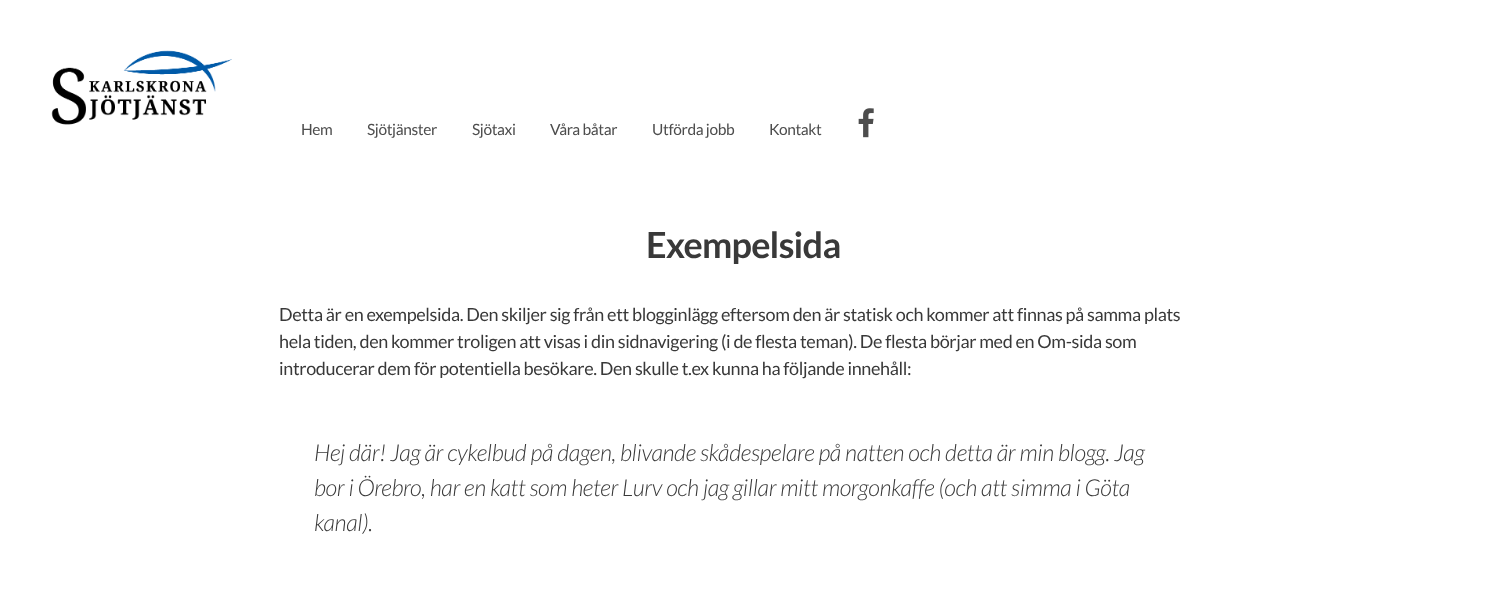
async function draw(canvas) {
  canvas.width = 1486;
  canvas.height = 606;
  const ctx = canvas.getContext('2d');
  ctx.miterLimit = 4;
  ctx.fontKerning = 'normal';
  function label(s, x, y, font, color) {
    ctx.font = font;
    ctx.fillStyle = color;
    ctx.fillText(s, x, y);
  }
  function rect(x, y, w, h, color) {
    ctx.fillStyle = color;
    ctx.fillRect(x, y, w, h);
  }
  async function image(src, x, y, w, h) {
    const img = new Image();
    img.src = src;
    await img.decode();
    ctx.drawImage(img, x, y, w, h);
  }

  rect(0, 0, 1486, 606, '#fff');
  await image('assets/img1.png', 51, 50, 181, 75);
  ctx.letterSpacing = '-0.36px';
  label('Hem', 301, 135, '15.5px Lato', '#4d4d4d');
  label('Sjötjänster', 367, 135, '15.5px Lato', '#4d4d4d');
  label('Sjötaxi', 472, 135, '15.5px Lato', '#4d4d4d');
  label('Våra båtar', 550, 135, '15.5px Lato', '#4d4d4d');
  label('Utförda jobb', 652, 135, '15.5px Lato', '#4d4d4d');
  label('Kontakt', 769, 135, '15.5px Lato', '#4d4d4d');
  await image('assets/img2.png', 858, 108, 16, 30);
  ctx.letterSpacing = '-0.75px';
  label('Exempelsida', 646, 258, 'bold 36px Lato', '#393939');
  ctx.letterSpacing = '-0.36px';
  label('Detta är en exempelsida. Den skiljer sig från ett blogginlägg eftersom den är statisk och kommer att finnas på samma plats', 279, 321, '18px Lato', '#393939');
  label('hela tiden, den kommer troligen att visas i din sidnavigering (i de flesta teman). De flesta börjar med en Om-sida som', 279, 348, '18px Lato', '#393939');
  label('introducerar dem för potentiella besökare. Den skulle t.ex kunna ha följande innehåll:', 279, 375, '18px Lato', '#393939');
  label('Hej där! Jag är cykelbud på dagen, blivande skådespelare på natten och detta är min blogg. Jag', 314, 461, 'italic 300 23.4px Lato', '#393939');
  label('bor i Örebro, har en katt som heter Lurv och jag gillar mitt morgonkaffe (och att simma i Göta', 314, 496, 'italic 300 23.4px Lato', '#393939');
  label('kanal).', 314, 531, 'italic 300 23.4px Lato', '#393939');
}

draw(document.querySelector('canvas'));
